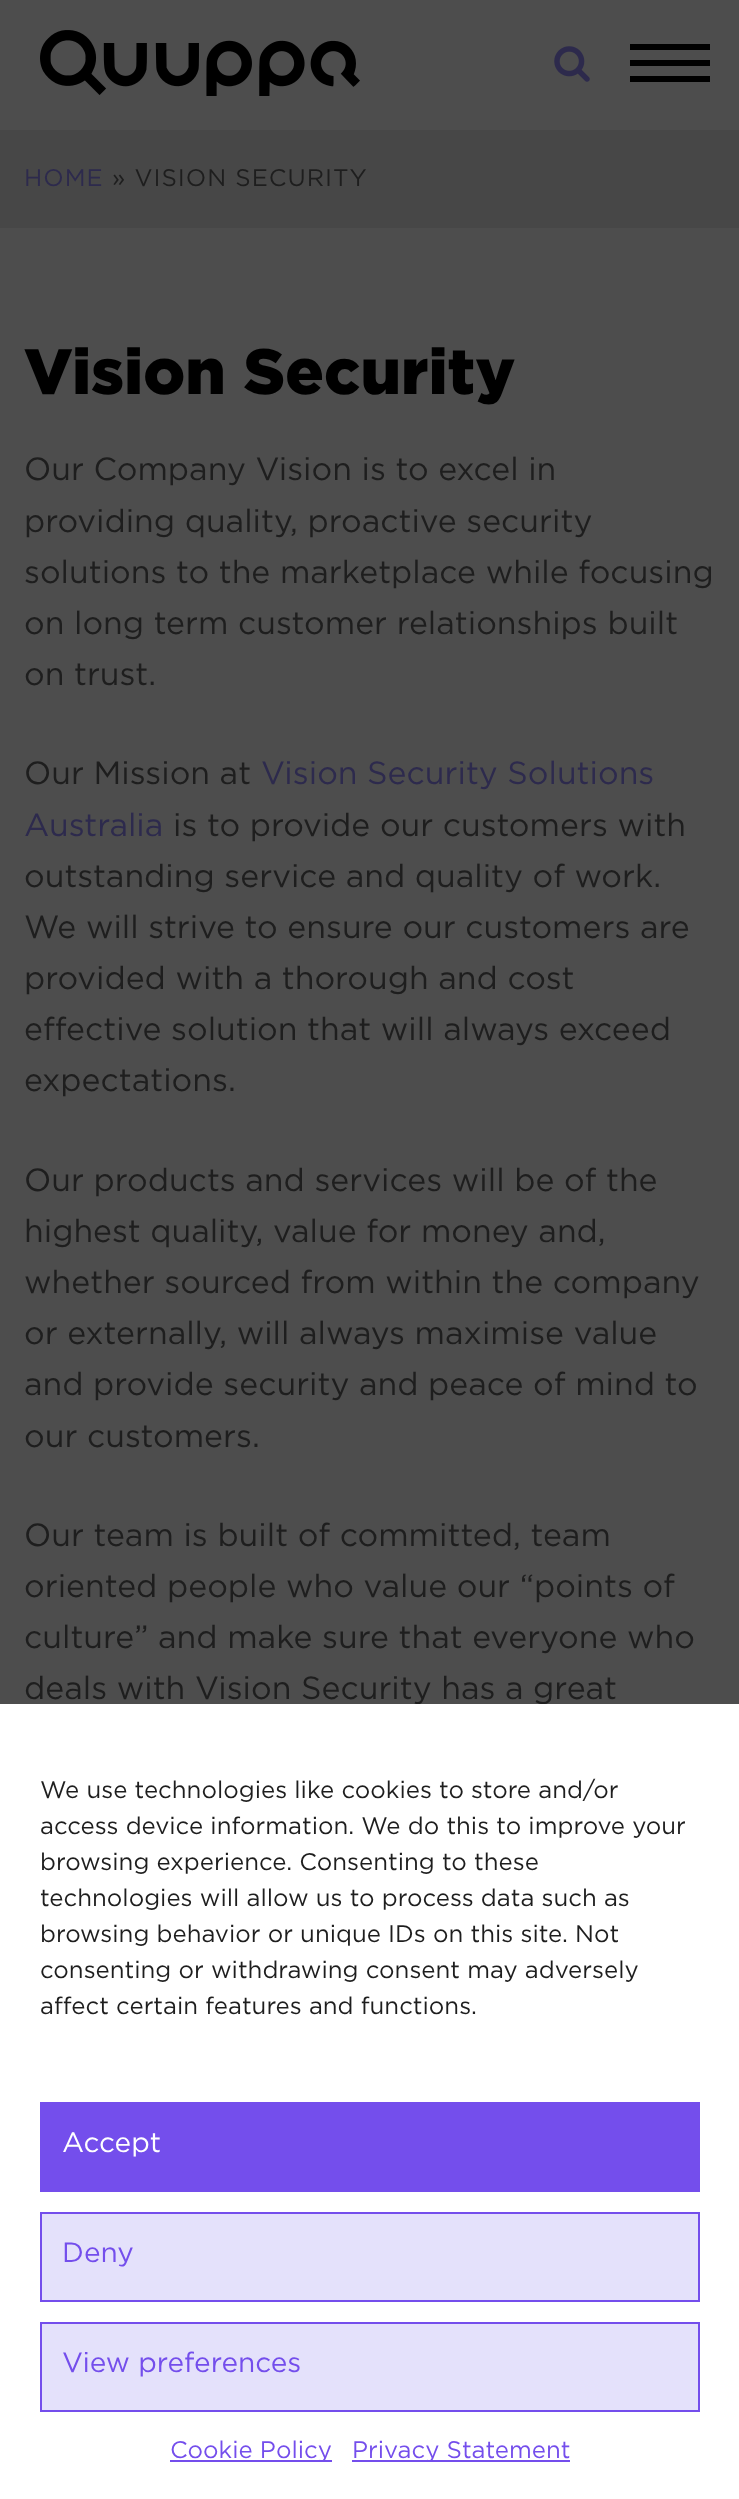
async function draw(canvas) {
  canvas.width = 739;
  canvas.height = 2499;
  const ctx = canvas.getContext('2d');
  ctx.miterLimit = 4;
  ctx.fontKerning = 'normal';
  function label(s, x, y, font, color) {
    ctx.font = font;
    ctx.fillStyle = color;
    ctx.fillText(s, x, y);
  }
  function rect(x, y, w, h, color) {
    ctx.fillStyle = color;
    ctx.fillRect(x, y, w, h);
  }
  async function image(src, x, y, w, h) {
    const img = new Image();
    img.src = src;
    await img.decode();
    ctx.drawImage(img, x, y, w, h);
  }

  rect(0, 0, 739, 2499, '#4d4d4d');
  await image('assets/img1.png', 40, 30, 320, 66);
  await image('assets/img2.png', 554, 46, 36, 36);
  rect(630, 76, 80, 6, '#000');
  rect(630, 44, 80, 6, '#000');
  rect(630, 60, 80, 6, '#000');
  rect(0, 130, 739, 98, '#474747');
  ctx.letterSpacing = '1px';
  label('HOME', 24, 186, '24px Gotham', '#2d2a4d');
  label('» VISION SECURITY', 112, 186, '24px Gotham', '#1e1e1e');
  ctx.letterSpacing = '0px';
  label('Vision Security', 24, 394, '900 64px Gotham', '#000');
  label('Our Company Vision is to excel in', 24, 480, '32px Gotham', '#1e1e1e');
  label('providing quality, proactive security', 24, 532, '32px Gotham', '#1e1e1e');
  label('solutions to the marketplace while focusing', 24, 583, '32px Gotham', '#1e1e1e');
  label('on long term customer relationships built', 24, 634, '32px Gotham', '#1e1e1e');
  label('on trust.', 24, 685, '32px Gotham', '#1e1e1e');
  label('Our Mission at', 24, 784, '32px Gotham', '#1e1e1e');
  label('Vision Security Solutions', 261, 784, '32px Gotham', '#2d2a4d');
  label('Australia', 24, 836, '32px Gotham', '#2d2a4d');
  label('is to provide our customers with', 173, 836, '32px Gotham', '#1e1e1e');
  label('outstanding service and quality of work.', 24, 887, '32px Gotham', '#1e1e1e');
  label('We will strive to ensure our customers are', 24, 938, '32px Gotham', '#1e1e1e');
  label('provided with a thorough and cost', 24, 989, '32px Gotham', '#1e1e1e');
  label('effective solution that will always exceed', 24, 1040, '32px Gotham', '#1e1e1e');
  label('expectations.', 24, 1091, '32px Gotham', '#1e1e1e');
  label('Our products and services will be of the', 24, 1191, '32px Gotham', '#1e1e1e');
  label('highest quality, value for money and,', 24, 1242, '32px Gotham', '#1e1e1e');
  label('whether sourced from within the company', 24, 1293, '32px Gotham', '#1e1e1e');
  label('or externally, will always maximise value', 24, 1344, '32px Gotham', '#1e1e1e');
  label('and provide security and peace of mind to', 24, 1395, '32px Gotham', '#1e1e1e');
  label('our customers.', 24, 1447, '32px Gotham', '#1e1e1e');
  label('Our team is built of committed, team', 24, 1546, '32px Gotham', '#1e1e1e');
  label('oriented people who value our “points of', 24, 1597, '32px Gotham', '#1e1e1e');
  label('culture” and make sure that everyone who', 24, 1648, '32px Gotham', '#1e1e1e');
  label('deals with Vision Security has a great', 24, 1699, '32px Gotham', '#1e1e1e');
  rect(0, 1704, 739, 795, '#fff');
  label('We use technologies like cookies to store and/or', 40, 1798, '24px Gotham', '#1e1e1e');
  label('access device information. We do this to improve your', 40, 1834, '24px Gotham', '#1e1e1e');
  label('browsing experience. Consenting to these', 40, 1870, '24px Gotham', '#1e1e1e');
  label('technologies will allow us to process data such as', 40, 1906, '24px Gotham', '#1e1e1e');
  label('browsing behavior or unique IDs on this site. Not', 40, 1942, '24px Gotham', '#1e1e1e');
  label('consenting or withdrawing consent may adversely', 40, 1978, '24px Gotham', '#1e1e1e');
  label('affect certain features and functions.', 40, 2014, '24px Gotham', '#1e1e1e');
  rect(40, 2102, 660, 90, '#744eec');
  label('Accept', 62, 2152, '28px Gotham', '#fff');
  ctx.fillStyle = '#e4e1fb';
  ctx.beginPath();
  ctx.rect(41, 2213, 658, 88);
  ctx.fill();
  ctx.strokeStyle = '#744eec';
  ctx.lineWidth = 2;
  ctx.stroke();
  label('Deny', 62, 2262, '28px Gotham', '#744eec');
  ctx.fillStyle = '#e4e1fb';
  ctx.beginPath();
  ctx.rect(41, 2323, 658, 88);
  ctx.fill();
  ctx.stroke();
  label('View preferences', 62, 2372, '28px Gotham', '#744eec');
  rect(170, 2460, 162, 2, '#744eec');
  label('Cookie Policy', 170, 2458, '24px Gotham', '#744eec');
  rect(352, 2460, 218, 2, '#744eec');
  label('Privacy Statement', 352, 2458, '24px Gotham', '#744eec');
}

draw(document.querySelector('canvas'));
